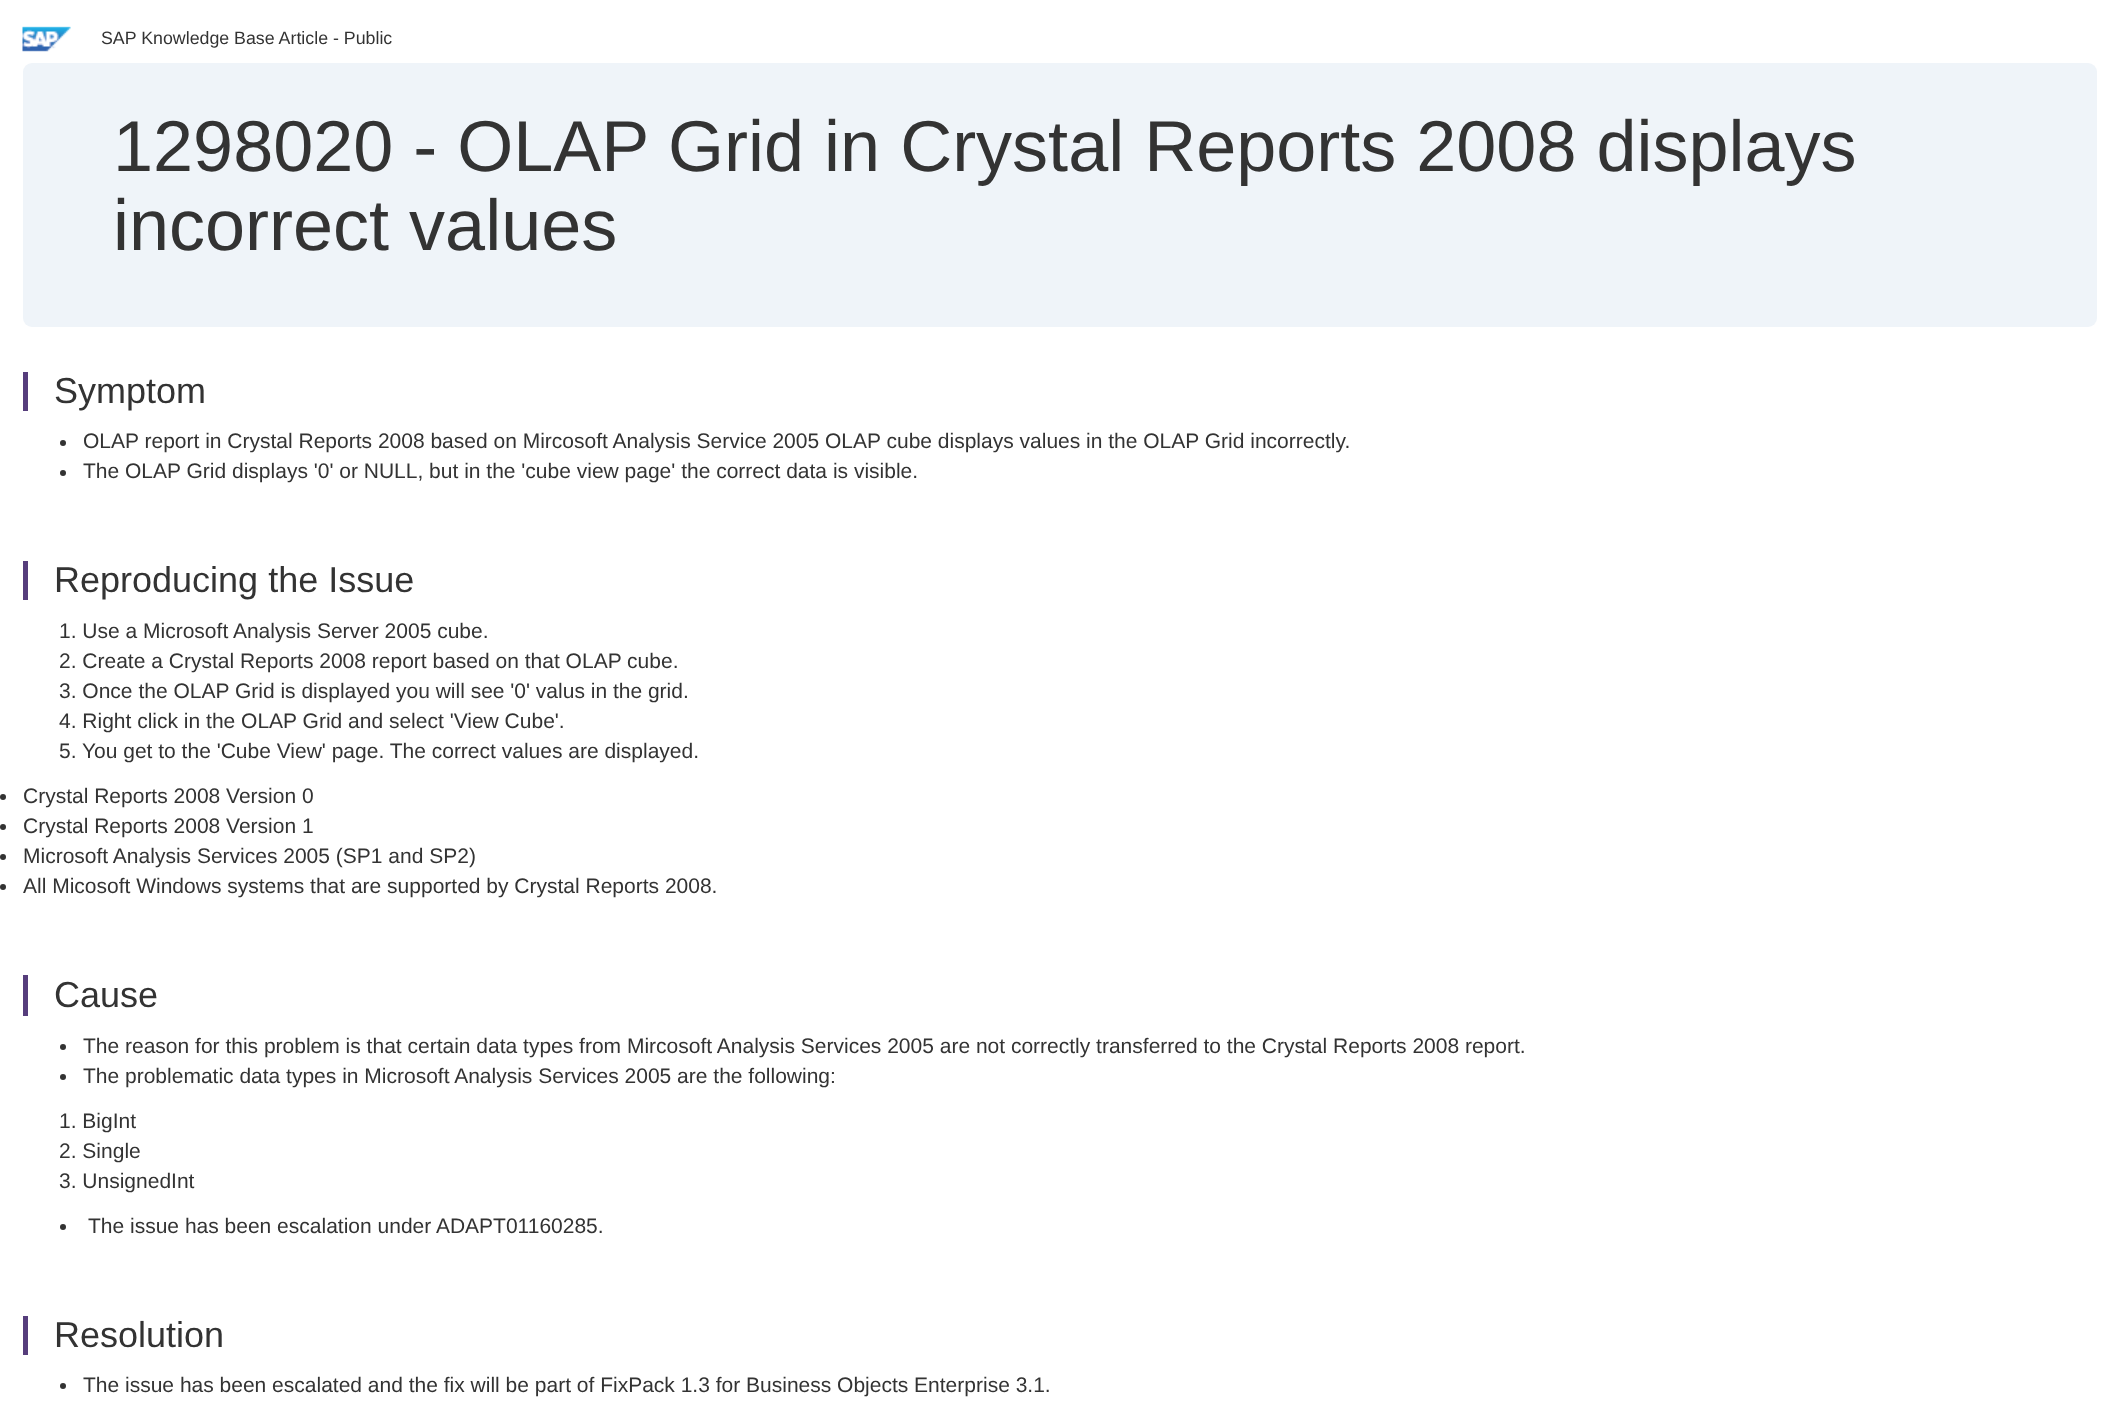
async function draw(canvas) {
  canvas.width = 2119;
  canvas.height = 1413;
  const ctx = canvas.getContext('2d');
  ctx.miterLimit = 4;
  ctx.fontKerning = 'normal';
  function label(s, x, y, font, color) {
    ctx.font = font;
    ctx.fillStyle = color;
    ctx.fillText(s, x, y);
  }
  function rect(x, y, w, h, color) {
    ctx.fillStyle = color;
    ctx.fillRect(x, y, w, h);
  }
  function roundedRect(x, y, w, h, r, color) {
    ctx.fillStyle = color;
    ctx.beginPath();
    ctx.roundRect(x, y, w, h, r);
    ctx.fill();
  }
  async function image(src, x, y, w, h) {
    const img = new Image();
    img.src = src;
    await img.decode();
    ctx.drawImage(img, x, y, w, h);
  }

  rect(0, 0, 2119, 1413, '#fff');
  await image('assets/img1.png', 22, 26, 49, 26);
  label('SAP Knowledge Base Article - Public', 101, 44, '17.8px Liberation Sans', '#333');
  roundedRect(23, 63, 2074, 264, 9, '#eff4f9');
  label('1298020 - OLAP Grid in Crystal Reports 2008 displays', 113, 171, '72px Liberation Sans', '#333');
  label('incorrect values', 113, 250, '72px Liberation Sans', '#333');
  rect(23, 372, 5, 39, '#563d7c');
  label('Symptom', 54, 403, '36px Liberation Sans', '#333');
  ctx.beginPath();
  ctx.arc(63, 443, 3, 0, 2 * Math.PI);
  ctx.fill();
  label('OLAP report in Crystal Reports 2008 based on Mircosoft Analysis Service 2005 OLAP cube displays values in the OLAP Grid incorrectly.', 83, 448, '21px Liberation Sans', '#333');
  ctx.beginPath();
  ctx.arc(63, 473, 3, 0, 2 * Math.PI);
  ctx.fill();
  label('The OLAP Grid displays \'0\' or NULL, but in the \'cube view page\' the correct data is visible.', 83, 478, '21px Liberation Sans', '#333');
  rect(23, 561, 5, 39, '#563d7c');
  label('Reproducing the Issue', 54, 592, '36px Liberation Sans', '#333');
  label('1. Use a Microsoft Analysis Server 2005 cube.', 59, 638, '21px Liberation Sans', '#333');
  label('2. Create a Crystal Reports 2008 report based on that OLAP cube.', 59, 668, '21px Liberation Sans', '#333');
  label('3. Once the OLAP Grid is displayed you will see \'0\' valus in the grid.', 59, 698, '21px Liberation Sans', '#333');
  label('4. Right click in the OLAP Grid and select \'View Cube\'.', 59, 728, '21px Liberation Sans', '#333');
  label('5. You get to the \'Cube View\' page. The correct values are displayed.', 59, 758, '21px Liberation Sans', '#333');
  ctx.beginPath();
  ctx.arc(3, 797, 3, 0, 2 * Math.PI);
  ctx.fill();
  label('Crystal Reports 2008 Version 0', 23, 803, '21px Liberation Sans', '#333');
  ctx.beginPath();
  ctx.arc(3, 827, 3, 0, 2 * Math.PI);
  ctx.fill();
  label('Crystal Reports 2008 Version 1', 23, 833, '21px Liberation Sans', '#333');
  ctx.beginPath();
  ctx.arc(3, 857, 3, 0, 2 * Math.PI);
  ctx.fill();
  label('Microsoft Analysis Services 2005 (SP1 and SP2)', 23, 863, '21px Liberation Sans', '#333');
  ctx.beginPath();
  ctx.arc(3, 887, 3, 0, 2 * Math.PI);
  ctx.fill();
  label('All Micosoft Windows systems that are supported by Crystal Reports 2008.', 23, 893, '21px Liberation Sans', '#333');
  rect(23, 975, 5, 41, '#563d7c');
  label('Cause', 54, 1007, '36px Liberation Sans', '#333');
  ctx.beginPath();
  ctx.arc(63, 1047, 3, 0, 2 * Math.PI);
  ctx.fill();
  label('The reason for this problem is that certain data types from Mircosoft Analysis Services 2005 are not correctly transferred to the Crystal Reports 2008 report.', 83, 1053, '21px Liberation Sans', '#333');
  ctx.beginPath();
  ctx.arc(63, 1077, 3, 0, 2 * Math.PI);
  ctx.fill();
  label('The problematic data types in Microsoft Analysis Services 2005 are the following:', 83, 1083, '21px Liberation Sans', '#333');
  label('1. BigInt', 59, 1128, '21px Liberation Sans', '#333');
  label('2. Single', 59, 1158, '21px Liberation Sans', '#333');
  label('3. UnsignedInt', 59, 1188, '21px Liberation Sans', '#333');
  ctx.beginPath();
  ctx.arc(63, 1227, 3, 0, 2 * Math.PI);
  ctx.fill();
  label('The issue has been escalation under ADAPT01160285.', 88, 1233, '21px Liberation Sans', '#333');
  rect(23, 1316, 5, 39, '#563d7c');
  label('Resolution', 54, 1347, '36px Liberation Sans', '#333');
  ctx.beginPath();
  ctx.arc(63, 1386, 3, 0, 2 * Math.PI);
  ctx.fill();
  label('The issue has been escalated and the fix will be part of FixPack 1.3 for Business Objects Enterprise 3.1.', 83, 1392, '21px Liberation Sans', '#333');
}

draw(document.querySelector('canvas'));
